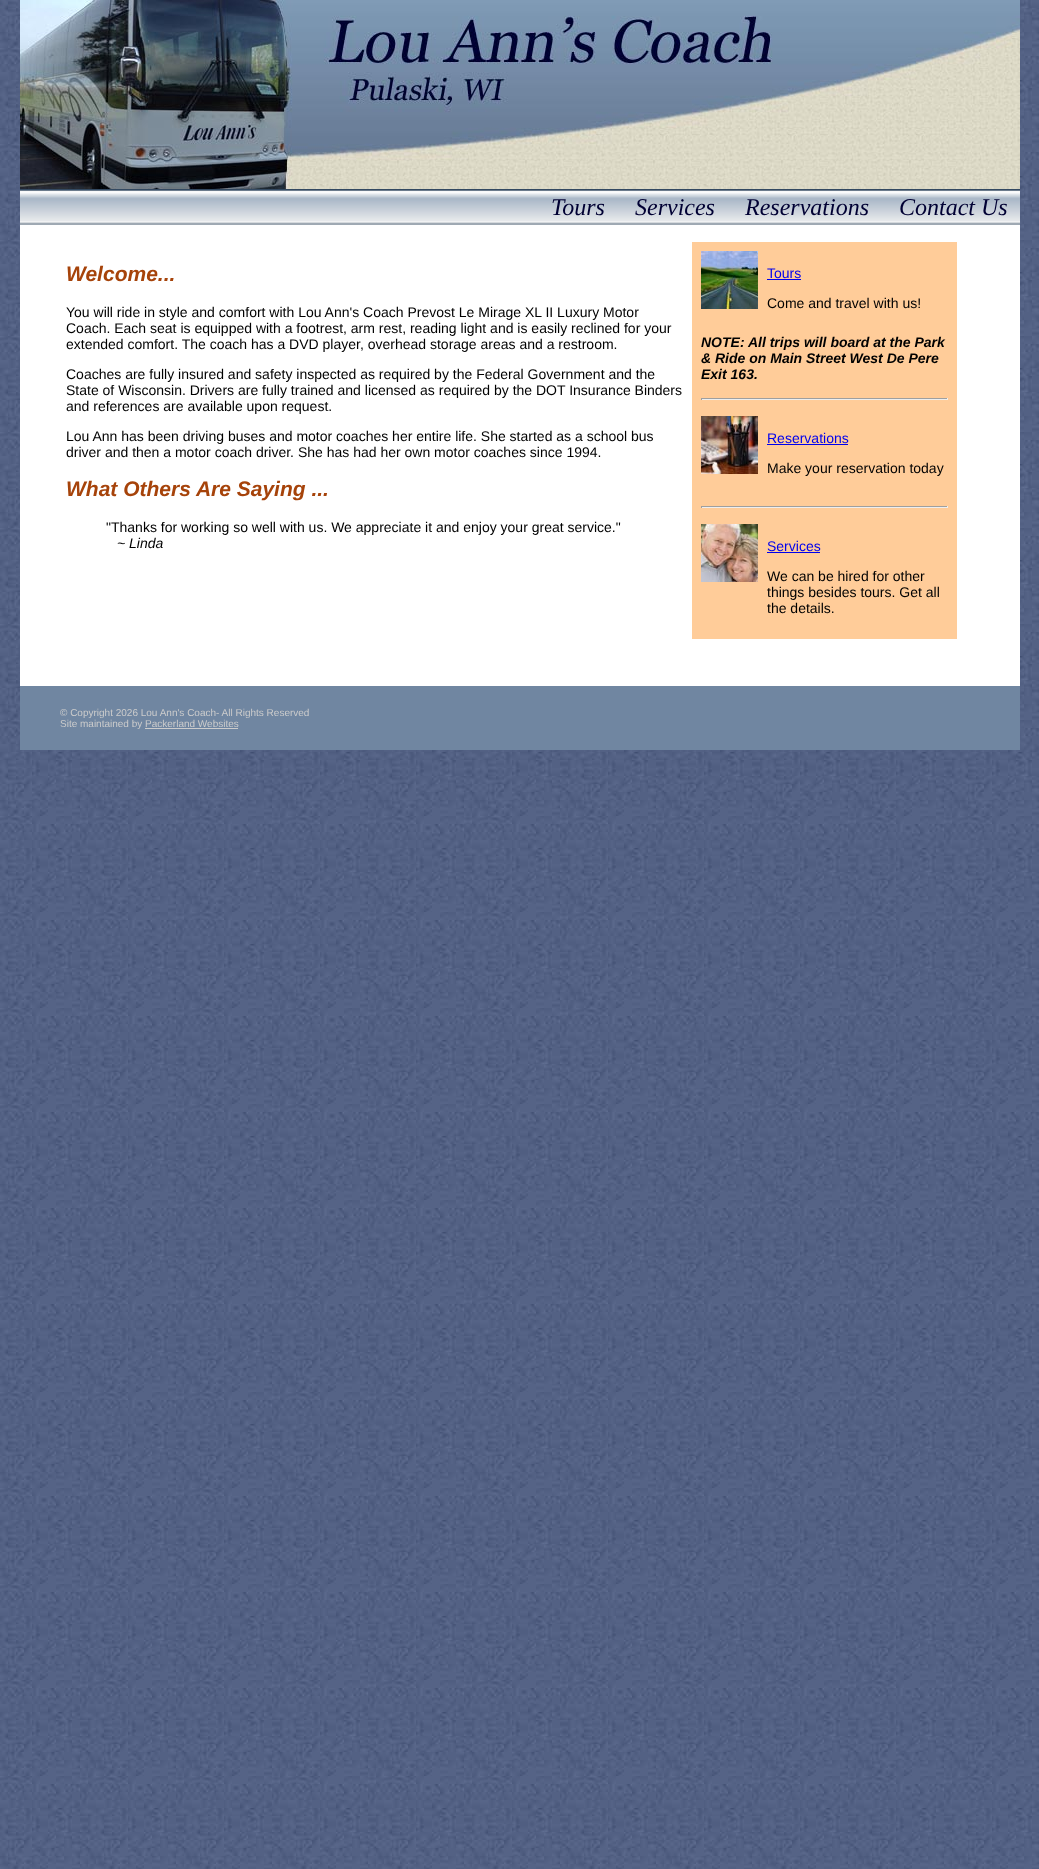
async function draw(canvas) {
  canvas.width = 1039;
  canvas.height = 1869;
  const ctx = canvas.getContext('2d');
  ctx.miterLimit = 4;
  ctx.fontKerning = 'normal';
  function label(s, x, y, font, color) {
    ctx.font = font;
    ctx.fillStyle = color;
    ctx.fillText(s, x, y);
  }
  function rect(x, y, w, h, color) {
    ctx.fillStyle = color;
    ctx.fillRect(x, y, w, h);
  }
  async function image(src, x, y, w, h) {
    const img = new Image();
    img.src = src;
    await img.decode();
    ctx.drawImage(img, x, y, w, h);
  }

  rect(0, 0, 1039, 1869, '#fff');
  await image('assets/img1.png', 0, 0, 1039, 1869);
  await image('assets/img2.png', 20, 0, 1000, 189);
  await image('assets/img3.png', 20, 189, 1000, 36);
  label('Tours', 551, 215, 'italic 24px Liberation Serif', '#003');
  label('Services', 635, 215, 'italic 24px Liberation Serif', '#003');
  label('Reservations', 745, 215, 'italic 24px Liberation Serif', '#003');
  label('Contact Us', 899, 215, 'italic 24px Liberation Serif', '#003');
  rect(20, 225, 1000, 461, '#fff');
  label('Welcome...', 66, 281, 'italic bold 21px Liberation Sans', '#a6430a');
  label('You will ride in style and comfort with Lou Ann\'s Coach Prevost Le Mirage XL II Luxury Motor', 66, 317, '14px Liberation Sans', '#000');
  label('Coach. Each seat is equipped with a footrest, arm rest, reading light and is easily reclined for your', 66, 333, '14px Liberation Sans', '#000');
  label('extended comfort. The coach has a DVD player, overhead storage areas and a restroom.', 66, 349, '14px Liberation Sans', '#000');
  label('Coaches are fully insured and safety inspected as required by the Federal Government and the', 66, 379, '14px Liberation Sans', '#000');
  label('State of Wisconsin. Drivers are fully trained and licensed as required by the DOT Insurance Binders', 66, 395, '14px Liberation Sans', '#000');
  label('and references are available upon request.', 66, 411, '14px Liberation Sans', '#000');
  label('Lou Ann has been driving buses and motor coaches her entire life. She started as a school bus', 66, 441, '14px Liberation Sans', '#000');
  label('driver and then a motor coach driver. She has had her own motor coaches since 1994.', 66, 457, '14px Liberation Sans', '#000');
  label('What Others Are Saying ...', 66, 496, 'italic bold 21px Liberation Sans', '#a6430a');
  label('"Thanks for working so well with us. We appreciate it and enjoy your great service."', 106, 532, '14px Liberation Sans', '#000');
  label('~ Linda', 117, 548, 'italic 14px Liberation Sans', '#000');
  rect(692, 242, 265, 397, '#fc9');
  await image('assets/img4.png', 701, 251, 57, 58);
  label('Tours', 767, 278, '14px Liberation Sans', '#00e');
  rect(767, 279, 34, 1, '#00e');
  label('Come and travel with us!', 767, 308, '14px Liberation Sans', '#000');
  label('NOTE: All trips will board at the Park', 701, 347, 'italic bold 14px Liberation Sans', '#000');
  label('& Ride on Main Street West De Pere', 701, 363, 'italic bold 14px Liberation Sans', '#000');
  label('Exit 163.', 701, 379, 'italic bold 14px Liberation Sans', '#000');
  rect(701, 398, 247, 1, '#9f9f9f');
  rect(947, 398, 1, 2, '#eee');
  rect(701, 399, 247, 1, '#eee');
  rect(701, 398, 1, 2, '#9f9f9f');
  await image('assets/img5.png', 701, 416, 57, 58);
  label('Reservations', 767, 443, '14px Liberation Sans', '#00e');
  rect(767, 444, 81, 1, '#00e');
  label('Make your reservation today', 767, 473, '14px Liberation Sans', '#000');
  rect(701, 506, 247, 1, '#9f9f9f');
  rect(947, 506, 1, 2, '#eee');
  rect(701, 507, 247, 1, '#eee');
  rect(701, 506, 1, 2, '#9f9f9f');
  await image('assets/img6.png', 701, 524, 57, 58);
  label('Services', 767, 551, '14px Liberation Sans', '#00e');
  rect(767, 552, 53, 1, '#00e');
  label('We can be hired for other', 767, 581, '14px Liberation Sans', '#000');
  label('things besides tours. Get all', 767, 597, '14px Liberation Sans', '#000');
  label('the details.', 767, 613, '14px Liberation Sans', '#000');
  rect(20, 686, 1000, 64, '#7086a1');
  label('© Copyright 2026 Lou Ann\'s Coach- All Rights Reserved', 60, 716, '10px Liberation Sans', '#ccc');
  label('Site maintained by Packerland Websites', 60, 727, '10px Liberation Sans', '#ccc');
  rect(145, 728, 93, 1, '#ccc');
}

draw(document.querySelector('canvas'));
